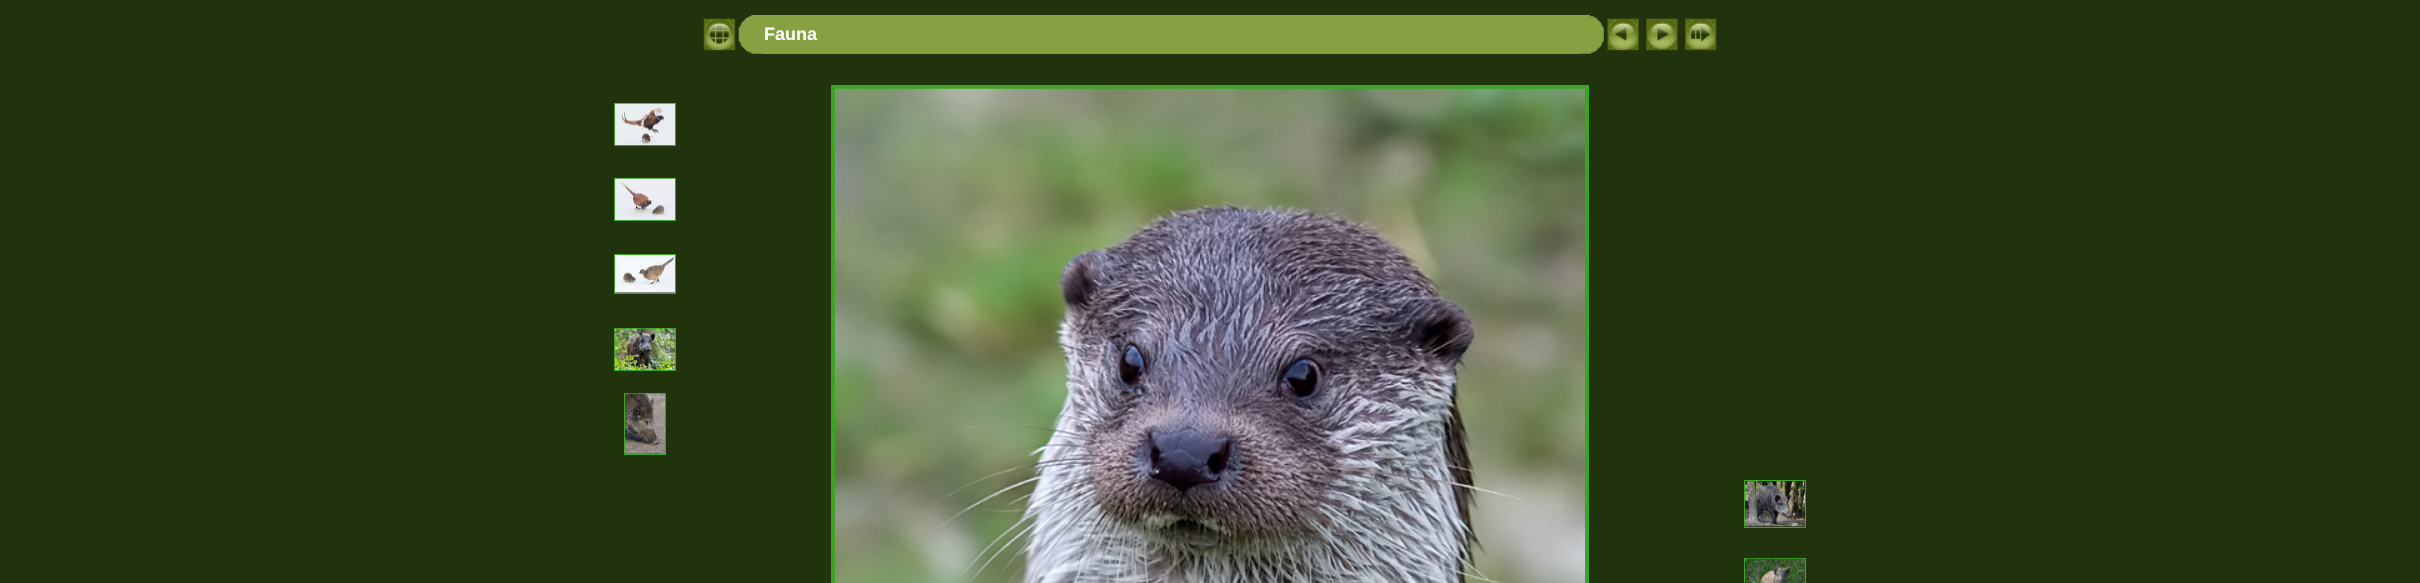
async function draw(canvas) {
  canvas.width = 2420;
  canvas.height = 583;
  const ctx = canvas.getContext('2d');
  ctx.miterLimit = 4;
  ctx.fontKerning = 'normal';
  function label(s, x, y, font, color) {
    ctx.font = font;
    ctx.fillStyle = color;
    ctx.fillText(s, x, y);
  }
  function rect(x, y, w, h, color) {
    ctx.fillStyle = color;
    ctx.fillRect(x, y, w, h);
  }
  async function image(src, x, y, w, h) {
    const img = new Image();
    img.src = src;
    await img.decode();
    ctx.drawImage(img, x, y, w, h);
  }

  rect(0, 0, 2420, 583, '#21330d');
  await image('assets/img1.png', 703, 18, 33, 33);
  await image('assets/img2.png', 738, 15, 25, 39);
  rect(763, 15, 816, 39, '#86a142');
  label('Fauna', 764, 40, 'bold 18px Liberation Sans', '#fff');
  await image('assets/img3.png', 1579, 15, 25, 39);
  await image('assets/img4.png', 1607, 18, 32, 33);
  await image('assets/img5.png', 1646, 18, 32, 33);
  await image('assets/img6.png', 1685, 18, 32, 33);
  ctx.strokeStyle = '#3da322';
  ctx.strokeRect(614.5, 103.5, 61, 42);
  await image('assets/img7.png', 615, 103, 60, 42);
  ctx.strokeRect(614.5, 178.5, 61, 42);
  await image('assets/img8.png', 615, 178, 60, 42);
  ctx.strokeRect(614.5, 254.5, 61, 39);
  await image('assets/img9.png', 615, 255, 60, 38);
  ctx.strokeRect(614.5, 328.5, 61, 42);
  await image('assets/img10.png', 615, 328, 60, 42);
  ctx.strokeRect(624.5, 393.5, 41, 61);
  await image('assets/img11.png', 625, 393, 40, 61);
  ctx.lineWidth = 4;
  ctx.strokeRect(833, 87, 754, 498);
  await image('assets/img12.png', 835, 88, 750, 495);
  ctx.lineWidth = 1;
  ctx.strokeRect(1744.5, 480.5, 61, 47);
  await image('assets/img13.png', 1745, 481, 60, 46);
  ctx.strokeRect(1744.5, 558.5, 61, 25);
  await image('assets/img14.png', 1745, 558, 60, 25);
}

draw(document.querySelector('canvas'));
